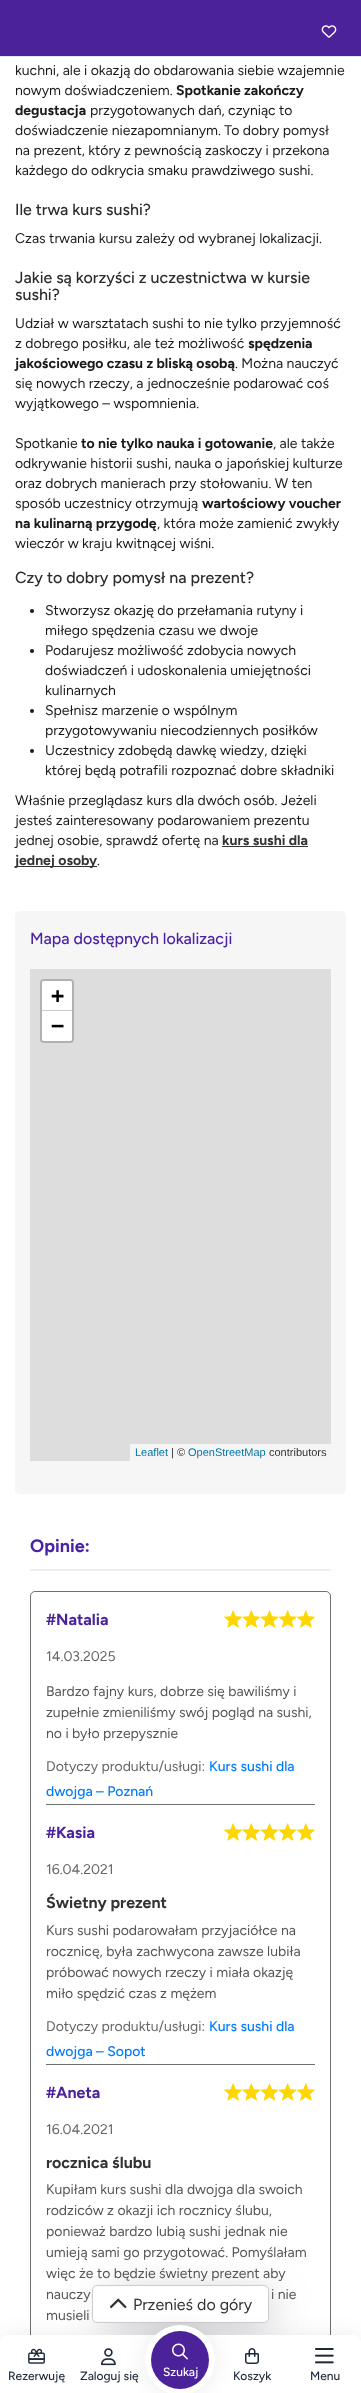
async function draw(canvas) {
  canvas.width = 361;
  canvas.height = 2393;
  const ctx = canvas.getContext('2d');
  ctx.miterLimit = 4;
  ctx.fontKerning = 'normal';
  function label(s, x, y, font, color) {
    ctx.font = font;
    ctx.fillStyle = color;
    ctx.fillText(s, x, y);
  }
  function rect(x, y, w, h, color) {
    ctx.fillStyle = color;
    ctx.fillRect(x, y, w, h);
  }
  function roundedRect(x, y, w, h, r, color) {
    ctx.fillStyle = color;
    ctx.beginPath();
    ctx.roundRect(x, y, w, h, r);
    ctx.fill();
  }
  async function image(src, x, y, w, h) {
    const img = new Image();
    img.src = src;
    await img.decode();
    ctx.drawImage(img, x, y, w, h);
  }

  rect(0, 0, 361, 2393, '#fff');
  label('kuchni, ale i okazją do obdarowania siebie wzajemnie', 15, 75, '14px Figtree', '#1a1a1a');
  label('nowym doświadczeniem.', 15, 95, '14px Figtree', '#1a1a1a');
  label('Spotkanie zakończy', 176, 95, 'bold 14px Figtree', '#1a1a1a');
  label('degustacja', 15, 115, 'bold 14px Figtree', '#1a1a1a');
  label('przygotowanych dań, czyniąc to', 90, 115, '14px Figtree', '#1a1a1a');
  label('doświadczenie niezapomnianym. To dobry pomysł', 15, 135, '14px Figtree', '#1a1a1a');
  label('na prezent, który z pewnością zaskoczy i przekona', 15, 155, '14px Figtree', '#1a1a1a');
  label('każdego do odkrycia smaku prawdziwego sushi.', 15, 175, '14px Figtree', '#1a1a1a');
  label('Ile trwa kurs sushi?', 15, 215, '500 16px Figtree', '#2b2b2b');
  label('Czas trwania kursu zależy od wybranej lokalizacji.', 15, 243, '14px Figtree', '#1a1a1a');
  label('Jakie są korzyści z uczestnictwa w kursie', 15, 283, '500 16px Figtree', '#2b2b2b');
  label('sushi?', 15, 300, '500 16px Figtree', '#2b2b2b');
  label('Udział w warsztatach sushi to nie tylko przyjemność', 15, 328, '14px Figtree', '#1a1a1a');
  label('z dobrego posiłku, ale też możliwość', 15, 348, '14px Figtree', '#1a1a1a');
  label('spędzenia', 248, 348, 'bold 14px Figtree', '#1a1a1a');
  label('jakościowego czasu z bliską osobą', 15, 368, 'bold 14px Figtree', '#1a1a1a');
  label('. Można nauczyć', 235, 368, '14px Figtree', '#1a1a1a');
  label('się nowych rzeczy, a jednocześnie podarować coś', 15, 388, '14px Figtree', '#1a1a1a');
  label('wyjątkowego – wspomnienia.', 15, 408, '14px Figtree', '#1a1a1a');
  label('Spotkanie', 15, 448, '14px Figtree', '#1a1a1a');
  label('to nie tylko nauka i gotowanie', 81, 448, 'bold 14px Figtree', '#1a1a1a');
  label(', ale także', 273, 448, '14px Figtree', '#1a1a1a');
  label('odkrywanie historii sushi, nauka o japońskiej kulturze', 15, 468, '14px Figtree', '#1a1a1a');
  label('oraz dobrych manierach przy stołowaniu. W ten', 15, 488, '14px Figtree', '#1a1a1a');
  label('sposób uczestnicy otrzymują', 15, 508, '14px Figtree', '#1a1a1a');
  label('wartościowy voucher', 202, 508, 'bold 14px Figtree', '#1a1a1a');
  label('na kulinarną przygodę', 15, 528, 'bold 14px Figtree', '#1a1a1a');
  label(', która może zamienić zwykły', 157, 528, '14px Figtree', '#1a1a1a');
  label('wieczór w kraju kwitnącej wiśni.', 15, 548, '14px Figtree', '#1a1a1a');
  label('Czy to dobry pomysł na prezent?', 15, 583, '500 16px Figtree', '#2b2b2b');
  ctx.fillStyle = '#1a1a1a';
  ctx.beginPath();
  ctx.arc(32, 611, 2, 0, 2 * Math.PI);
  ctx.fill();
  label('Stworzysz okazję do przełamania rutyny i', 45, 615, '14px Figtree', '#1a1a1a');
  label('miłego spędzenia czasu we dwoje', 45, 635, '14px Figtree', '#1a1a1a');
  ctx.beginPath();
  ctx.arc(32, 651, 2, 0, 2 * Math.PI);
  ctx.fill();
  label('Podarujesz możliwość zdobycia nowych', 45, 655, '14px Figtree', '#1a1a1a');
  label('doświadczeń i udoskonalenia umiejętności', 45, 675, '14px Figtree', '#1a1a1a');
  label('kulinarnych', 45, 695, '14px Figtree', '#1a1a1a');
  ctx.beginPath();
  ctx.arc(32, 711, 2, 0, 2 * Math.PI);
  ctx.fill();
  label('Spełnisz marzenie o wspólnym', 45, 715, '14px Figtree', '#1a1a1a');
  label('przygotowywaniu niecodziennych posiłków', 45, 735, '14px Figtree', '#1a1a1a');
  ctx.beginPath();
  ctx.arc(32, 751, 2, 0, 2 * Math.PI);
  ctx.fill();
  label('Uczestnicy zdobędą dawkę wiedzy, dzięki', 45, 755, '14px Figtree', '#1a1a1a');
  label('której będą potrafili rozpoznać dobre składniki', 45, 775, '14px Figtree', '#1a1a1a');
  label('Właśnie przeglądasz kurs dla dwóch osób. Jeżeli', 15, 805, '14px Figtree', '#1a1a1a');
  label('jesteś zainteresowany podarowaniem prezentu', 15, 825, '14px Figtree', '#1a1a1a');
  label('jednej osobie, sprawdź ofertę na', 15, 845, '14px Figtree', '#1a1a1a');
  label('kurs sushi dla', 222, 845, 'bold 14px Figtree', '#333');
  rect(222, 846, 86, 1, '#333');
  rect(15, 866, 82, 1, '#333');
  label('jednej osoby', 15, 865, 'bold 14px Figtree', '#333');
  label('.', 97, 865, '14px Figtree', '#1a1a1a');
  roundedRect(15, 911, 331, 583, 5, '#f7f6f6');
  label('Mapa dostępnych lokalizacji', 30, 944, '500 16px Figtree', '#4c22a4');
  rect(30, 969, 301, 492, '#ddd');
  ctx.beginPath();
  ctx.roundRect(41, 980, 32, 62, 3);
  ctx.strokeStyle = '#b1b1b1';
  ctx.lineWidth = 2;
  ctx.stroke();
  ctx.fillStyle = '#fff';
  ctx.beginPath();
  ctx.roundRect(42, 981, 30, 30, [2, 2, 0, 0]);
  ctx.fill();
  rect(42, 1010, 30, 1, '#ccc');
  label('+', 51, 1003, 'bold 22px DejaVu Sans Mono', '#000');
  ctx.fillStyle = '#fff';
  ctx.beginPath();
  ctx.roundRect(42, 1011, 30, 30, [0, 0, 2, 2]);
  ctx.fill();
  label('−', 51, 1033, 'bold 22px DejaVu Sans Mono', '#000');
  rect(130, 1444, 201, 17, '#f5f5f5');
  label('Leaflet', 135, 1456, '11px Liberation Sans', '#0078a8');
  label('| ©', 171, 1456, '11px Liberation Sans', '#333');
  label('OpenStreetMap', 188, 1456, '11px Liberation Sans', '#0078a8');
  label('contributors', 269, 1456, '11px Liberation Sans', '#333');
  ctx.beginPath();
  ctx.roundRect(30.5, 1591.5, 300, 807, 4.5);
  ctx.strokeStyle = '#707070';
  ctx.lineWidth = 1;
  ctx.stroke();
  ctx.fillStyle = '#42445a80';
  ctx.filter = 'blur(20.5px)';
  ctx.beginPath();
  ctx.rect(108, 2301, 161, 22);
  ctx.fill();
  ctx.filter = 'none';
  ctx.fillStyle = '#fff';
  ctx.beginPath();
  ctx.roundRect(92.5, 2285.5, 176, 37, 4.5);
  ctx.fill();
  ctx.strokeStyle = '#ccc';
  ctx.stroke();
  await image('assets/img1.png', 109, 2298, 18, 11);
  label('Przenieś do góry', 133, 2310, '16px Figtree', '#333');
  rect(30, 1569, 301, 2, '#eee');
  label('Opinie:', 30, 1552, 'bold 18px Figtree', '#4c22a4');
  rect(46, 1804, 269, 1, '#707070');
  label('#Natalia', 46, 1625, 'bold 16px Figtree', '#4c229c');
  label('14.03.2025', 46, 1661, '14px Figtree', '#666');
  await image('assets/img2.png', 224, 1610, 91, 18);
  await image('assets/img3.png', 224, 1610, 91, 18);
  label('Bardzo fajny kurs, dobrze się bawiliśmy i', 46, 1696, '14px Figtree', '#555');
  label('zupełnie zmieniliśmy swój pogląd na sushi,', 46, 1717, '14px Figtree', '#555');
  label('no i było przepysznie', 46, 1738, '14px Figtree', '#555');
  label('Dotyczy produktu/usługi:', 46, 1771, '14px Figtree', '#666');
  label('Kurs sushi dla', 209, 1771, '500 14px Figtree', '#007bff');
  label('dwojga – Poznań', 46, 1796, '500 14px Figtree', '#007bff');
  rect(46, 2064, 269, 1, '#707070');
  label('#Kasia', 46, 1838, 'bold 16px Figtree', '#4c229c');
  label('16.04.2021', 46, 1874, '14px Figtree', '#666');
  await image('assets/img2.png', 224, 1823, 91, 18);
  await image('assets/img3.png', 224, 1823, 91, 18);
  label('Świetny prezent', 46, 1908, 'bold 16px Figtree', '#333');
  label('Kurs sushi podarowałam przyjaciółce na', 46, 1935, '14px Figtree', '#555');
  label('rocznicę, była zachwycona zawsze lubiła', 46, 1956, '14px Figtree', '#555');
  label('próbować nowych rzeczy i miała okazję', 46, 1977, '14px Figtree', '#555');
  label('miło spędzić czas z mężem', 46, 1998, '14px Figtree', '#555');
  label('Dotyczy produktu/usługi:', 46, 2031, '14px Figtree', '#666');
  label('Kurs sushi dla', 209, 2031, '500 14px Figtree', '#007bff');
  label('dwojga – Sopot', 46, 2056, '500 14px Figtree', '#007bff');
  label('#Aneta', 46, 2098, 'bold 16px Figtree', '#4c229c');
  label('16.04.2021', 46, 2134, '14px Figtree', '#666');
  await image('assets/img2.png', 224, 2083, 91, 18);
  await image('assets/img3.png', 224, 2083, 91, 18);
  label('rocznica ślubu', 46, 2168, 'bold 16px Figtree', '#333');
  label('Kupiłam kurs sushi dla dwojga dla swoich', 46, 2194, '14px Figtree', '#555');
  label('rodziców z okazji ich rocznicy ślubu,', 46, 2215, '14px Figtree', '#555');
  label('ponieważ bardzo lubią sushi jednak nie', 46, 2236, '14px Figtree', '#555');
  label('umieją sami go przygotować. Pomyślałam', 46, 2257, '14px Figtree', '#555');
  label('więc że to będzie świetny prezent aby', 46, 2278, '14px Figtree', '#555');
  label('nauczy', 46, 2299, '14px Figtree', '#555');
  label('i nie', 271, 2299, '14px Figtree', '#555');
  label('musieli', 46, 2320, '14px Figtree', '#555');
  rect(0, 56, 361, 1, '#e2e8f0');
  rect(0, 0, 361, 56, '#4c229b');
  await image('assets/img4.png', 321, 25, 16, 13);
  ctx.fillStyle = '#00000014';
  ctx.filter = 'blur(10px)';
  ctx.beginPath();
  ctx.roundRect(0, 2335, 361, 58, 8);
  ctx.fill();
  ctx.filter = 'none';
  ctx.fillStyle = '#fff';
  ctx.beginPath();
  ctx.roundRect(0, 2335, 361, 58, [8, 8, 0, 0]);
  ctx.fill();
  await image('assets/img5.png', 28, 2348, 17, 16);
  label('Rezerwuję', 8, 2380, '500 12px Figtree', '#1e293b');
  await image('assets/img6.png', 101, 2348, 15, 18);
  label('Zaloguj się', 80, 2380, '500 12px Figtree', '#1e293b');
  ctx.fillStyle = '#00000014';
  ctx.filter = 'blur(10px)';
  ctx.beginPath();
  ctx.roundRect(145, 2325, 70, 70, 35);
  ctx.fill();
  ctx.filter = 'none';
  ctx.fillStyle = '#fff';
  ctx.beginPath();
  ctx.arc(180, 2360, 35, 0, 2 * Math.PI);
  ctx.fill();
  ctx.fillStyle = '#4c229b';
  ctx.beginPath();
  ctx.arc(180, 2360, 29, 0, 2 * Math.PI);
  ctx.fill();
  await image('assets/img7.png', 172, 2343, 16, 17);
  label('Szukaj', 163, 2376, '500 12px Figtree', '#fff');
  await image('assets/img8.png', 245, 2348, 14, 16);
  label('Koszyk', 233, 2380, '500 12px Figtree', '#1e293b');
  await image('assets/img9.png', 315, 2348, 19, 16);
  label('Menu', 310, 2380, '500 12px Figtree', '#1e293b');
}

draw(document.querySelector('canvas'));
